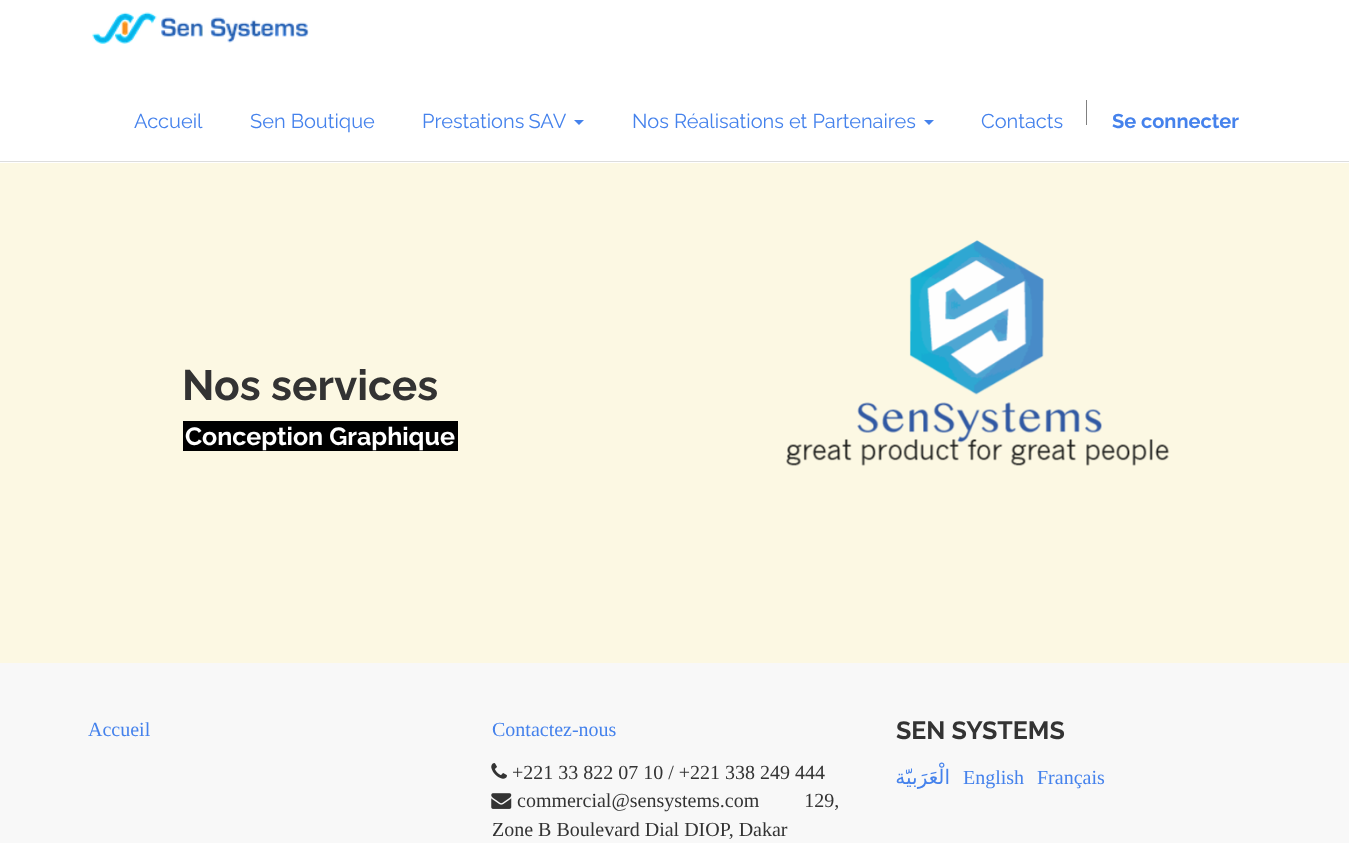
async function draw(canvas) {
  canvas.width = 1349;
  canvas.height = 843;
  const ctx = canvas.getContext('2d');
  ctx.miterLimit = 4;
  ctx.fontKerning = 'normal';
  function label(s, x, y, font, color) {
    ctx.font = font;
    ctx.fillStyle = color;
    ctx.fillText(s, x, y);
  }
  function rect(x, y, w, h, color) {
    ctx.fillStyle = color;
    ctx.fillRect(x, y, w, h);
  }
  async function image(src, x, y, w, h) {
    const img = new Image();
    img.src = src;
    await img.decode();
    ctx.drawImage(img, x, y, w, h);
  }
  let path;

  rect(0, 0, 1349, 843, '#fff');
  rect(0, 161, 1349, 1, '#ddd');
  await image('assets/img1.png', 92, 12, 217, 32);
  label('Accueil', 134, 128, '20px Raleway', '#4582ec');
  label('Sen Boutique', 250, 128, '20px Raleway', '#4582ec');
  ctx.wordSpacing = '-1px';
  label('Prestations SAV', 422, 128, '20px Raleway', '#4582ec');
  path = new Path2D('M574 120H584L579 125Z');
  ctx.fill(path);
  ctx.wordSpacing = '0px';
  label('Nos Réalisations et Partenaires', 632, 128, '20px Raleway', '#4582ec');
  path = new Path2D('M924 120H934L929 125Z');
  ctx.fill(path);
  label('Contacts', 981, 128, '20px Raleway', '#4582ec');
  rect(1086, 100, 1, 25, '#808080');
  label('Se connecter', 1112, 128, 'bold 20px Raleway', '#4582ec');
  rect(0, 163, 1349, 500, '#fcf8e3');
  label('Nos services', 182, 400, 'bold 42.5px Raleway', '#333');
  rect(183, 421, 275, 30, '#000');
  label('Conception Graphique', 185, 445, 'bold 25px Raleway', '#fff');
  await image('assets/img2.png', 786, 240, 384, 226);
  rect(0, 663, 1349, 180, '#f8f8f8');
  label('Accueil', 88, 736, '20px Liberation Serif', '#4582ec');
  label('Contactez-nous', 492, 736, '20px Liberation Serif', '#4582ec');
  await image('assets/img3.png', 491, 763, 16, 16);
  label('+221 33 822 07 10 / +221 338 249 444', 512, 779, '20px Liberation Serif', '#333');
  await image('assets/img4.png', 491, 793, 21, 16);
  label('commercial@sensystems.com         129,', 517, 807, '20px Liberation Serif', '#333');
  label('Zone B Boulevard Dial DIOP, Dakar', 492, 836, '20px Liberation Serif', '#333');
  label('SEN SYSTEMS', 896, 739, 'bold 25px Raleway', '#333');
  ctx.direction = 'rtl';
  label('الْعَرَبيّة', 950, 784, '20px DejaVu Sans', '#4582ec');
  ctx.direction = 'ltr';
  label('English', 963, 784, '20px Liberation Serif', '#4582ec');
  label('Français', 1037, 784, '20px Liberation Serif', '#4582ec');
}

draw(document.querySelector('canvas'));
